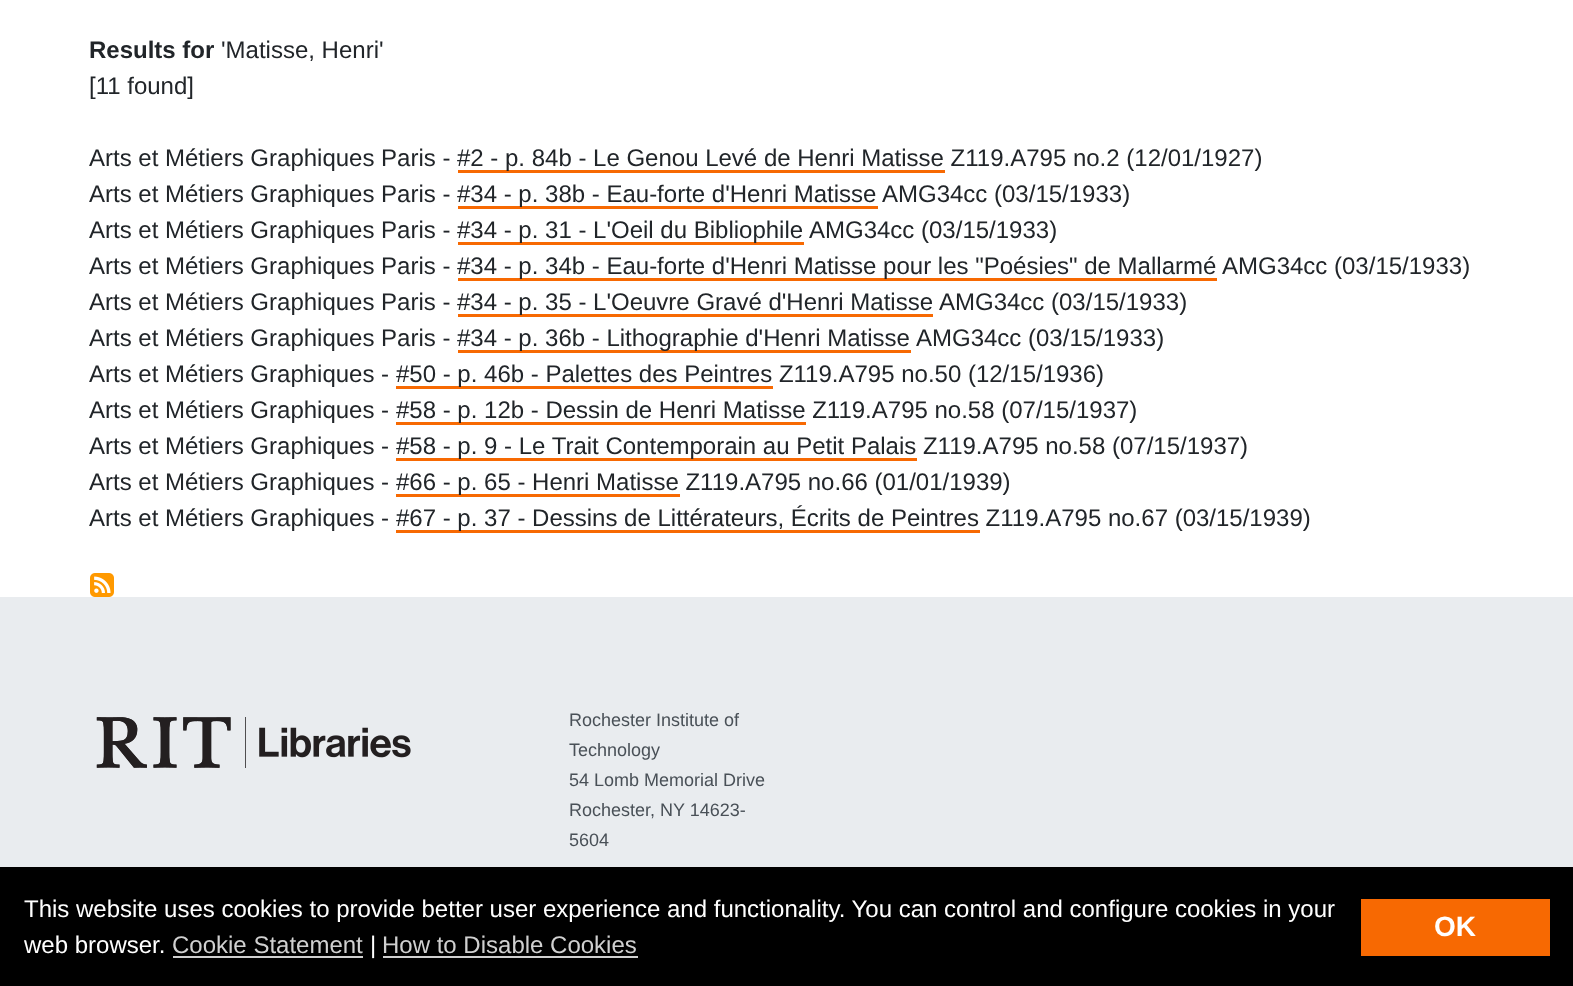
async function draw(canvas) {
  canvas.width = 1573;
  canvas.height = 986;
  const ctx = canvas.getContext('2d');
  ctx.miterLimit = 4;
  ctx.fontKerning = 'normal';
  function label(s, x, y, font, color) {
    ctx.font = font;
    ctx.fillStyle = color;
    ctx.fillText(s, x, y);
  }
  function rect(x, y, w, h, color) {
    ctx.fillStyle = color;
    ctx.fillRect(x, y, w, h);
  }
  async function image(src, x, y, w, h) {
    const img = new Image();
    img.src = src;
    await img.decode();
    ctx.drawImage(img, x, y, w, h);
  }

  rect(0, 0, 1573, 986, '#fff');
  label('Results for', 89, 58, 'bold 24px Liberation Sans', '#212529');
  label('\'Matisse, Henri\'', 221, 58, '24px Liberation Sans', '#212529');
  label('[11 found]', 89, 94, '24px Liberation Sans', '#212529');
  label('Arts et Métiers Graphiques Paris -', 89, 166, '24px Liberation Sans', '#212529');
  rect(458, 170, 487, 3, '#f76902');
  label('#2 - p. 84b - Le Genou Levé de Henri Matisse Z119.A795 no.2 (12/01/1927)', 457, 166, '24px Liberation Sans', '#212529');
  label('Arts et Métiers Graphiques Paris -', 89, 202, '24px Liberation Sans', '#212529');
  rect(458, 206, 420, 3, '#f76902');
  label('#34 - p. 38b - Eau-forte d\'Henri Matisse', 457, 202, '24px Liberation Sans', '#212529');
  label('AMG34cc (03/15/1933)', 882, 202, '24px Liberation Sans', '#212529');
  label('Arts et Métiers Graphiques Paris -', 89, 238, '24px Liberation Sans', '#212529');
  rect(458, 242, 346, 3, '#f76902');
  label('#34 - p. 31 - L\'Oeil du Bibliophile', 457, 238, '24px Liberation Sans', '#212529');
  label('AMG34cc (03/15/1933)', 809, 238, '24px Liberation Sans', '#212529');
  label('Arts et Métiers Graphiques Paris -', 89, 274, '24px Liberation Sans', '#212529');
  rect(458, 278, 759, 3, '#f76902');
  label('#34 - p. 34b - Eau-forte d\'Henri Matisse pour les "Poésies" de Mallarmé', 457, 274, '24px Liberation Sans', '#212529');
  label('AMG34cc (03/15/1933)', 1222, 274, '24px Liberation Sans', '#212529');
  label('Arts et Métiers Graphiques Paris -', 89, 310, '24px Liberation Sans', '#212529');
  rect(458, 314, 475, 3, '#f76902');
  label('#34 - p. 35 - L\'Oeuvre Gravé d\'Henri Matisse', 457, 310, '24px Liberation Sans', '#212529');
  label('AMG34cc (03/15/1933)', 939, 310, '24px Liberation Sans', '#212529');
  label('Arts et Métiers Graphiques Paris -', 89, 346, '24px Liberation Sans', '#212529');
  rect(458, 350, 453, 3, '#f76902');
  label('#34 - p. 36b - Lithographie d\'Henri Matisse', 457, 346, '24px Liberation Sans', '#212529');
  label('AMG34cc (03/15/1933)', 916, 346, '24px Liberation Sans', '#212529');
  label('Arts et Métiers Graphiques -', 89, 382, '24px Liberation Sans', '#212529');
  rect(396, 386, 377, 3, '#f76902');
  label('#50 - p. 46b - Palettes des Peintres Z119.A795 no.50 (12/15/1936)', 396, 382, '24px Liberation Sans', '#212529');
  label('Arts et Métiers Graphiques -', 89, 418, '24px Liberation Sans', '#212529');
  rect(396, 422, 410, 3, '#f76902');
  label('#58 - p. 12b - Dessin de Henri Matisse Z119.A795 no.58 (07/15/1937)', 396, 418, '24px Liberation Sans', '#212529');
  label('Arts et Métiers Graphiques -', 89, 454, '24px Liberation Sans', '#212529');
  rect(396, 458, 521, 3, '#f76902');
  label('#58 - p. 9 - Le Trait Contemporain au Petit Palais Z119.A795 no.58 (07/15/1937)', 396, 454, '24px Liberation Sans', '#212529');
  label('Arts et Métiers Graphiques -', 89, 490, '24px Liberation Sans', '#212529');
  rect(396, 494, 284, 3, '#f76902');
  label('#66 - p. 65 - Henri Matisse Z119.A795 no.66 (01/01/1939)', 396, 490, '24px Liberation Sans', '#212529');
  label('Arts et Métiers Graphiques -', 89, 526, '24px Liberation Sans', '#212529');
  rect(396, 530, 584, 3, '#f76902');
  label('#67 - p. 37 - Dessins de Littérateurs, Écrits de Peintres Z119.A795 no.67 (03/15/1939)', 396, 526, '24px Liberation Sans', '#212529');
  await image('assets/img1.png', 90, 573, 24, 24);
  rect(0, 597, 1573, 270, '#e9ecef');
  await image('assets/img2.png', 96, 717, 315, 51);
  label('Rochester Institute of', 569, 726, '18px Liberation Sans', '#495057');
  label('Technology', 569, 756, '18px Liberation Sans', '#495057');
  label('54 Lomb Memorial Drive', 569, 786, '18px Liberation Sans', '#495057');
  label('Rochester, NY 14623-', 569, 816, '18px Liberation Sans', '#495057');
  label('5604', 569, 846, '18px Liberation Sans', '#495057');
  rect(0, 867, 1573, 119, '#000');
  label('This website uses cookies to provide better user experience and functionality. You can control and configure cookies in your', 24, 917, '24px Liberation Sans', '#fff');
  label('web browser.', 24, 953, '24px Liberation Sans', '#fff');
  label('Cookie Statement', 172, 953, '24px Liberation Sans', '#d0d0d0');
  rect(173, 956, 190, 2, '#d0d0d0');
  label('|', 370, 953, '24px Liberation Sans', '#fff');
  label('How to Disable Cookies', 382, 953, '24px Liberation Sans', '#d0d0d0');
  rect(383, 956, 255, 2, '#d0d0d0');
  rect(1361, 899, 189, 57, '#f76902');
  label('OK', 1434, 936, 'bold 28px Liberation Sans', '#fff');
}

draw(document.querySelector('canvas'));
